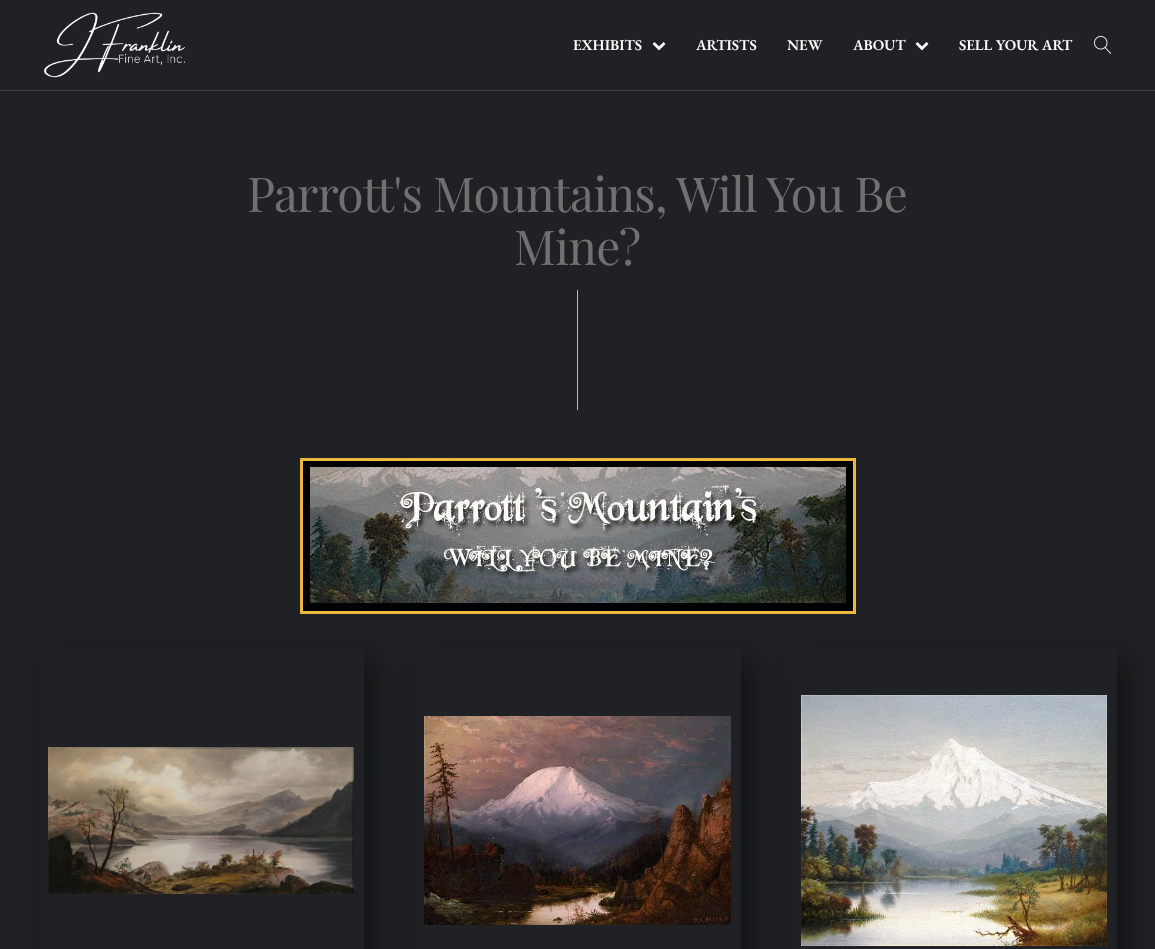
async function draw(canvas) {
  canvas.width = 1155;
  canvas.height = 949;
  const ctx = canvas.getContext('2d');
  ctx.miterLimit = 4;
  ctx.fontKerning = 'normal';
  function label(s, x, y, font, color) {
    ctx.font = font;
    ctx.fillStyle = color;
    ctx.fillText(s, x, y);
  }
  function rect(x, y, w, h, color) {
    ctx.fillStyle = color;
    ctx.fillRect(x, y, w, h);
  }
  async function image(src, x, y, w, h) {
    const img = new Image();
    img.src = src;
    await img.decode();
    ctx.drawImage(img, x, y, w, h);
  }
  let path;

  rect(0, 0, 1155, 949, '#202124');
  rect(0, 90, 1155, 1, '#374047');
  await image('assets/img1.png', 44, 12, 141, 66);
  label('EXHIBITS', 573, 50, '600 15px EB Garamond', '#fff');
  await image('assets/img2.png', 652, 42, 14, 9);
  label('ARTISTS', 696, 50, '600 15px EB Garamond', '#fff');
  label('NEW', 787, 50, '600 15px EB Garamond', '#fff');
  label('ABOUT', 853, 50, '600 15px EB Garamond', '#fff');
  await image('assets/img2.png', 915, 42, 14, 9);
  label('SELL YOUR ART', 959, 50, '600 15px EB Garamond', '#fff');
  await image('assets/img3.png', 1094, 36, 18, 18);
  ctx.letterSpacing = '-0.8px';
  label('Parrott\'s Mountains, Will You Be', 247, 212, '48px Playfair Display', '#707070');
  label('Mine?', 514, 265, '48px Playfair Display', '#707070');
  rect(577, 290, 1, 120, '#ebb73e');
  ctx.strokeStyle = '#ebb73e';
  ctx.lineWidth = 3;
  ctx.strokeRect(301.5, 459.5, 553, 153);
  await image('assets/img4.png', 303, 461, 550, 150);
  ctx.save();
  path = new Path2D('M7 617H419V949H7ZM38 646H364V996H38Z');
  ctx.clip(path, 'evenodd');
  ctx.fillStyle = '#00000066';
  ctx.filter = 'blur(14px)';
  ctx.beginPath();
  ctx.rect(50, 660, 326, 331);
  ctx.fill();
  ctx.filter = 'none';
  ctx.restore();
  await image('assets/img5.png', 48, 747, 306, 147);
  ctx.save();
  path = new Path2D('M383 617H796V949H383ZM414 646H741V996H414Z');
  ctx.clip(path, 'evenodd');
  ctx.fillStyle = '#00000066';
  ctx.filter = 'blur(14px)';
  ctx.beginPath();
  ctx.rect(426, 660, 327, 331);
  ctx.fill();
  ctx.filter = 'none';
  ctx.restore();
  await image('assets/img6.png', 424, 716, 307, 209);
  ctx.save();
  path = new Path2D('M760 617H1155V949H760ZM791 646H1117V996H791Z');
  ctx.clip(path, 'evenodd');
  ctx.fillStyle = '#00000066';
  ctx.filter = 'blur(14px)';
  ctx.beginPath();
  ctx.rect(803, 660, 326, 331);
  ctx.fill();
  ctx.filter = 'none';
  ctx.restore();
  await image('assets/img7.png', 801, 695, 306, 251);
}

draw(document.querySelector('canvas'));
